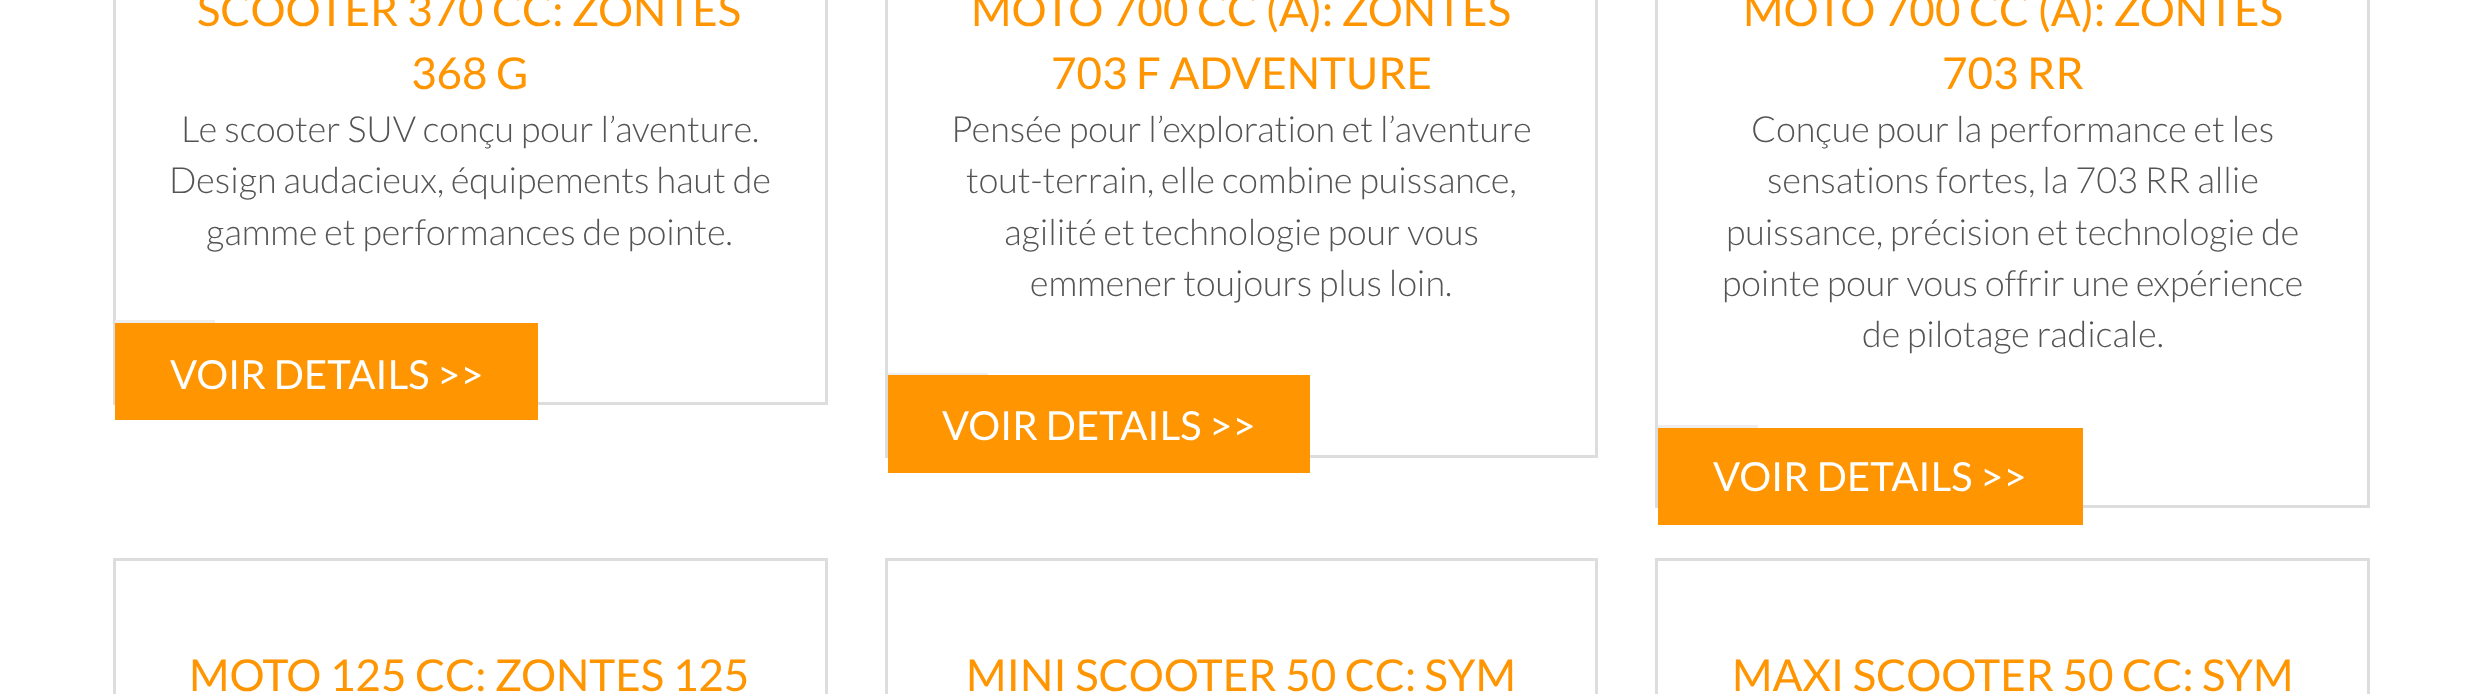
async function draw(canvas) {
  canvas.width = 2490;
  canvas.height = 694;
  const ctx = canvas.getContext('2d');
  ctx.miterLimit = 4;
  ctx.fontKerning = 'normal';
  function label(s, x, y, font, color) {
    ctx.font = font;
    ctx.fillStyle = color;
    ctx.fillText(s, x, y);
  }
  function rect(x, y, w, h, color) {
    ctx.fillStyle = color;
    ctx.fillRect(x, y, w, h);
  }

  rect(0, 0, 2490, 694, '#fff');
  ctx.strokeStyle = '#ddd';
  ctx.lineWidth = 3;
  ctx.strokeRect(114.5, -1.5, 712, 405);
  label('SCOOTER 370 CC: ZONTES', 197, 26, '44px Lato', '#ff9500');
  label('368 G', 411, 89, '44px Lato', '#ff9500');
  label('Le scooter SUV conçu pour l’aventure.', 181, 142, '300 36px Lato', '#545454');
  label('Design audacieux, équipements haut de', 169, 193, '300 36px Lato', '#545454');
  label('gamme et performances de pointe.', 206, 245, '300 36px Lato', '#545454');
  rect(115, 320, 100, 3, '#eee');
  rect(115, 323, 423, 97, '#ff9500');
  label('VOIR DETAILS >>', 170, 389, '40px Lato', '#fff');
  ctx.strokeRect(886.5, -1.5, 710, 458);
  label('MOTO 700 CC (A): ZONTES', 971, 26, '44px Lato', '#ff9500');
  label('703 F ADVENTURE', 1051, 89, '44px Lato', '#ff9500');
  label('Pensée pour l’exploration et l’aventure', 951, 142, '300 36px Lato', '#545454');
  label('tout-terrain, elle combine puissance,', 966, 193, '300 36px Lato', '#545454');
  label('agilité et technologie pour vous', 1004, 245, '300 36px Lato', '#545454');
  label('emmener toujours plus loin.', 1030, 296, '300 36px Lato', '#545454');
  rect(888, 373, 100, 2, '#eee');
  rect(888, 375, 422, 98, '#ff9500');
  label('VOIR DETAILS >>', 942, 440, '40px Lato', '#fff');
  ctx.strokeRect(1656.5, -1.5, 712, 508);
  label('MOTO 700 CC (A): ZONTES', 1743, 26, '44px Lato', '#ff9500');
  label('703 RR', 1942, 89, '44px Lato', '#ff9500');
  label('Conçue pour la performance et les', 1751, 142, '300 36px Lato', '#545454');
  label('sensations fortes, la 703 RR allie', 1767, 193, '300 36px Lato', '#545454');
  label('puissance, précision et technologie de', 1726, 245, '300 36px Lato', '#545454');
  label('pointe pour vous offrir une expérience', 1722, 296, '300 36px Lato', '#545454');
  label('de pilotage radicale.', 1862, 347, '300 36px Lato', '#545454');
  rect(1658, 425, 100, 3, '#eee');
  rect(1658, 428, 425, 97, '#ff9500');
  label('VOIR DETAILS >>', 1713, 491, '40px Lato', '#fff');
  ctx.strokeRect(114.5, 559.5, 712, 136);
  label('MOTO 125 CC: ZONTES 125', 189, 691, '44px Lato', '#ff9500');
  ctx.strokeRect(886.5, 559.5, 710, 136);
  label('MINI SCOOTER 50 CC: SYM', 966, 691, '44px Lato', '#ff9500');
  ctx.strokeRect(1656.5, 559.5, 712, 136);
  label('MAXI SCOOTER 50 CC: SYM', 1732, 691, '44px Lato', '#ff9500');
}

draw(document.querySelector('canvas'));
